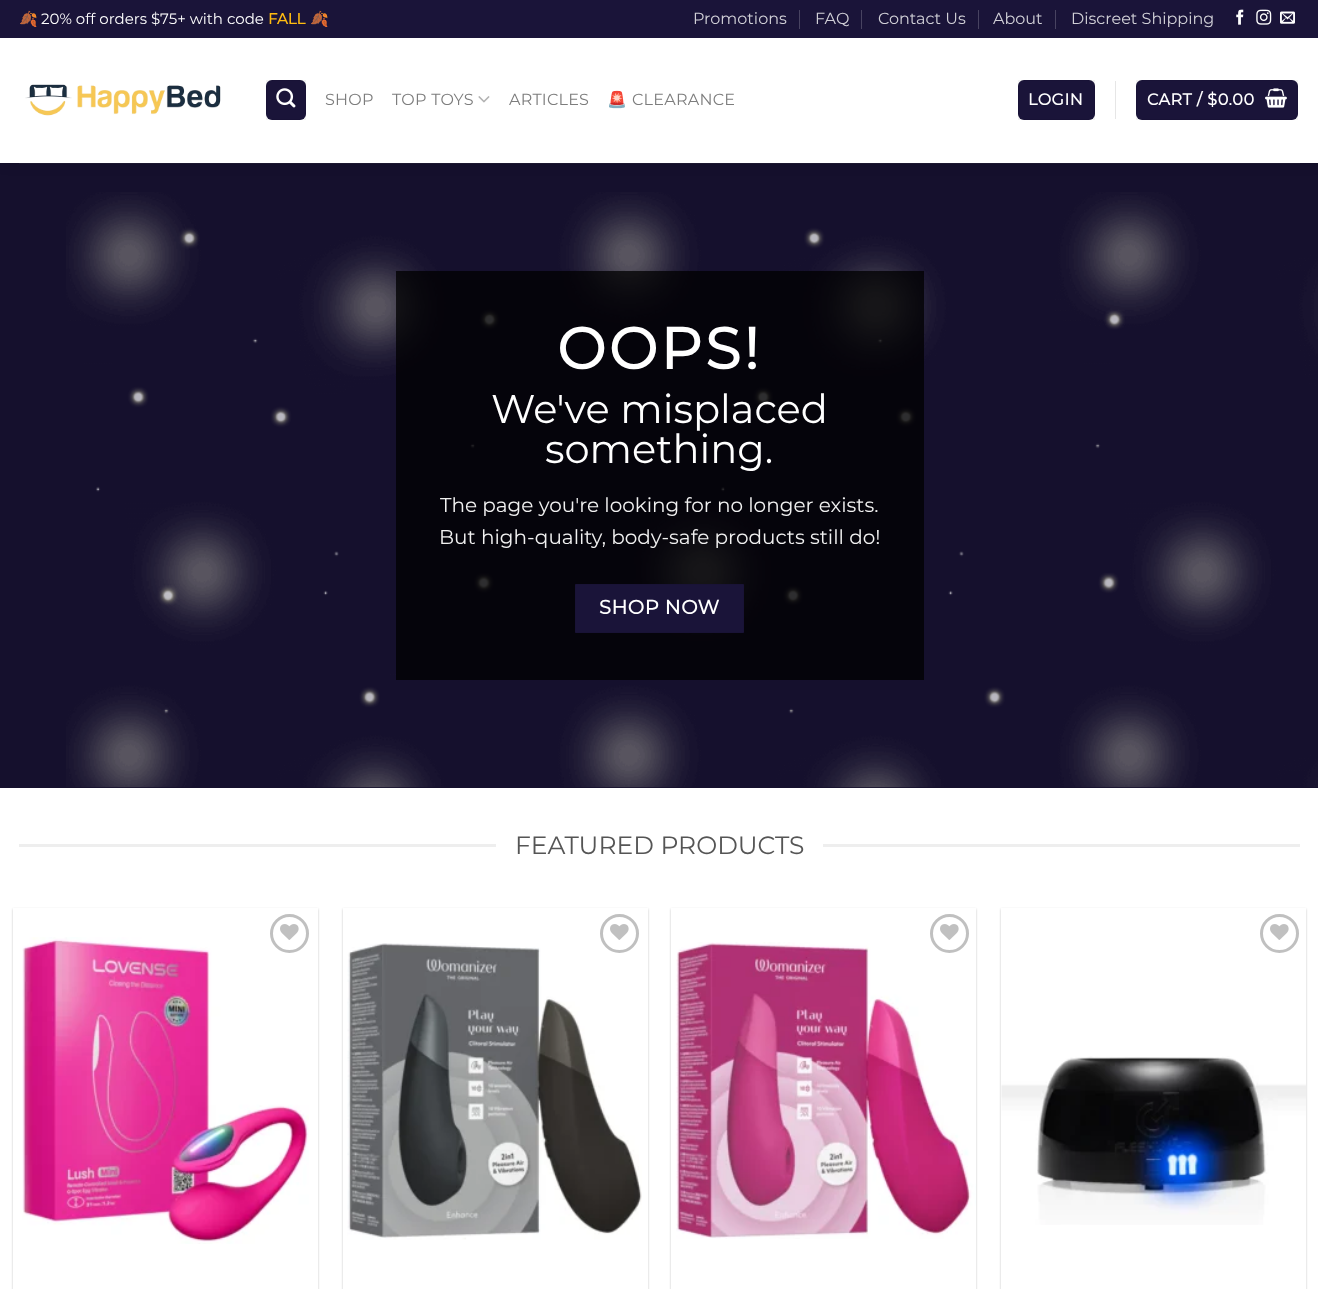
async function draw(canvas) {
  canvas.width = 1318;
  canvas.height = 1289;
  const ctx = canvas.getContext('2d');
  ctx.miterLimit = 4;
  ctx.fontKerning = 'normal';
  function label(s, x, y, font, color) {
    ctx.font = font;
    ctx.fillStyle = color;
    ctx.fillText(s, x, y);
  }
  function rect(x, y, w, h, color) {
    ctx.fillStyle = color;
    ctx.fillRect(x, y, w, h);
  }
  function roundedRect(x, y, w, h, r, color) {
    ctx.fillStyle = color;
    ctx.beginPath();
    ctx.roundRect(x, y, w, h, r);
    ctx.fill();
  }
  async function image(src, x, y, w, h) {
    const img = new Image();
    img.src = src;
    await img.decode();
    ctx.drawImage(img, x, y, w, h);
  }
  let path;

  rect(0, 0, 1318, 1289, '#fff');
  rect(0, 163, 1318, 625, '#15102d');
  ctx.save();
  path = new Path2D('M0 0H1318V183H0ZM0 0H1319V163H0Z');
  ctx.clip(path, 'evenodd');
  ctx.fillStyle = '#00000026';
  ctx.filter = 'blur(6px)';
  ctx.beginPath();
  ctx.rect(1, 1, 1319, 163);
  ctx.fill();
  ctx.filter = 'none';
  ctx.restore();
  rect(0, 0, 1318, 38, '#1a1439');
  label('🍂', 19, 24, '15px Noto Color Emoji', '#fff');
  label('20% off orders $75+ with code', 41, 24, '100 15px Montserrat', '#fff');
  label('FALL', 268, 24, 'bold 15px Montserrat', '#ffbc11');
  label('🍂', 310, 24, '15px Noto Color Emoji', '#fff');
  label('Promotions', 693, 24, '100 16px Montserrat', '#d1d0d7');
  rect(799, 10, 1, 19, '#484361');
  label('FAQ', 815, 24, '100 16px Montserrat', '#d1d0d7');
  rect(861, 10, 1, 19, '#484361');
  label('Contact Us', 878, 24, '100 16px Montserrat', '#d1d0d7');
  rect(978, 10, 1, 19, '#484361');
  label('About', 993, 24, '100 16px Montserrat', '#d1d0d7');
  rect(1055, 10, 1, 19, '#484361');
  label('Discreet Shipping', 1071, 24, '100 16px Montserrat', '#d1d0d7');
  await image('assets/img1.png', 1236, 9, 8, 16);
  await image('assets/img2.png', 1256, 9, 16, 16);
  await image('assets/img3.png', 1280, 11, 15, 13);
  await image('assets/img4.png', 25, 84, 196, 32);
  roundedRect(266, 80, 40, 40, 6, '#1a1439');
  ctx.strokeStyle = '#0000000d';
  ctx.strokeRect(266.5, 80.5, 39, 39);
  await image('assets/img5.png', 276, 88, 20, 20);
  ctx.letterSpacing = '0.25px';
  label('SHOP', 325, 105, '100 16px Montserrat', '#7d7d7d');
  label('TOP TOYS', 392, 105, '100 16px Montserrat', '#7d7d7d');
  await image('assets/img6.png', 478, 96, 12, 7);
  label('ARTICLES', 509, 105, '100 16px Montserrat', '#7d7d7d');
  label('🚨', 607, 105, '16px Noto Color Emoji', '#7d7d7d');
  label('CLEARANCE', 632, 105, '100 16px Montserrat', '#7d7d7d');
  roundedRect(1018, 80, 77, 40, 6, '#1a1439');
  ctx.strokeRect(1018.5, 80.5, 76, 39);
  ctx.letterSpacing = '0.5px';
  label('LOGIN', 1028, 105, 'bold 16px Montserrat', '#fff');
  rect(1115, 81, 1, 38, '#e6e6e6');
  roundedRect(1136, 80, 162, 40, 6, '#1a1439');
  ctx.strokeRect(1136.5, 80.5, 161, 39);
  label('CART / $0.00', 1147, 105, 'bold 16px Montserrat', '#fff');
  await image('assets/img7.png', 1265, 88, 22, 20);
  rect(19, 163, 1281, 1, '#1d1931');
  rect(0, 162, 1318, 1, '#ffffffe6');
  await image('assets/img8.png', 66, 192, 1252, 596);
  rect(396, 271, 528, 409, '#000000bf');
  ctx.letterSpacing = '3px';
  label('OOPS!', 557, 369, 'bold 58px Montserrat', '#fff');
  ctx.letterSpacing = '0px';
  label('We\'ve misplaced', 491, 423, '100 40px Montserrat', '#fff');
  label('something.', 545, 463, '100 40px Montserrat', '#fff');
  label('The page you\'re looking for no longer exists.', 440, 512, '100 20px Montserrat', '#f1f1f1');
  label('But high-quality, body-safe products still do!', 439, 544, '100 20px Montserrat', '#f1f1f1');
  ctx.fillStyle = '#1a1439';
  ctx.beginPath();
  ctx.rect(575.5, 584.5, 168, 48);
  ctx.fill();
  ctx.strokeStyle = '#191336';
  ctx.stroke();
  ctx.letterSpacing = '0.5px';
  label('SHOP NOW', 599, 614, 'bold 19.5px Montserrat', '#fff');
  rect(19, 844, 477, 3, '#eee');
  ctx.letterSpacing = '0px';
  label('FEATURED PRODUCTS', 515, 854, '100 25px Montserrat', '#555');
  rect(823, 844, 477, 3, '#eee');
  ctx.fillStyle = '#0000003d';
  ctx.filter = 'blur(1px)';
  ctx.beginPath();
  ctx.rect(13, 909, 305, 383);
  ctx.fill();
  ctx.filter = 'none';
  rect(13, 908, 305, 381, '#fff');
  await image('assets/img10.png', 22, 937, 287, 307);
  ctx.beginPath();
  ctx.arc(289.5, 933.5, 18, 0, 2 * Math.PI);
  ctx.strokeStyle = '#c0c0c0';
  ctx.lineWidth = 3;
  ctx.stroke();
  await image('assets/img9.png', 280, 924, 19, 16);
  ctx.fillStyle = '#0000003d';
  ctx.filter = 'blur(1px)';
  ctx.beginPath();
  ctx.rect(343, 909, 305, 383);
  ctx.fill();
  ctx.filter = 'none';
  rect(343, 908, 305, 381, '#fff');
  await image('assets/img11.png', 347, 943, 295, 297);
  ctx.beginPath();
  ctx.arc(619.5, 933.5, 18, 0, 2 * Math.PI);
  ctx.stroke();
  await image('assets/img9.png', 610, 924, 19, 16);
  ctx.fillStyle = '#0000003d';
  ctx.filter = 'blur(1px)';
  ctx.beginPath();
  ctx.rect(671, 909, 305, 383);
  ctx.fill();
  ctx.filter = 'none';
  rect(671, 908, 305, 381, '#fff');
  await image('assets/img12.png', 676, 942, 300, 297);
  ctx.beginPath();
  ctx.arc(949.5, 933.5, 18, 0, 2 * Math.PI);
  ctx.stroke();
  await image('assets/img9.png', 940, 924, 19, 16);
  ctx.fillStyle = '#0000003d';
  ctx.filter = 'blur(1px)';
  ctx.beginPath();
  ctx.rect(1001, 909, 305, 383);
  ctx.fill();
  ctx.filter = 'none';
  rect(1001, 908, 305, 381, '#fff');
  ctx.beginPath();
  ctx.arc(1279.5, 933.5, 18, 0, 2 * Math.PI);
  ctx.stroke();
  await image('assets/img9.png', 1270, 924, 19, 16);
  await image('assets/img13.png', 1001, 1056, 305, 169);
}

draw(document.querySelector('canvas'));
